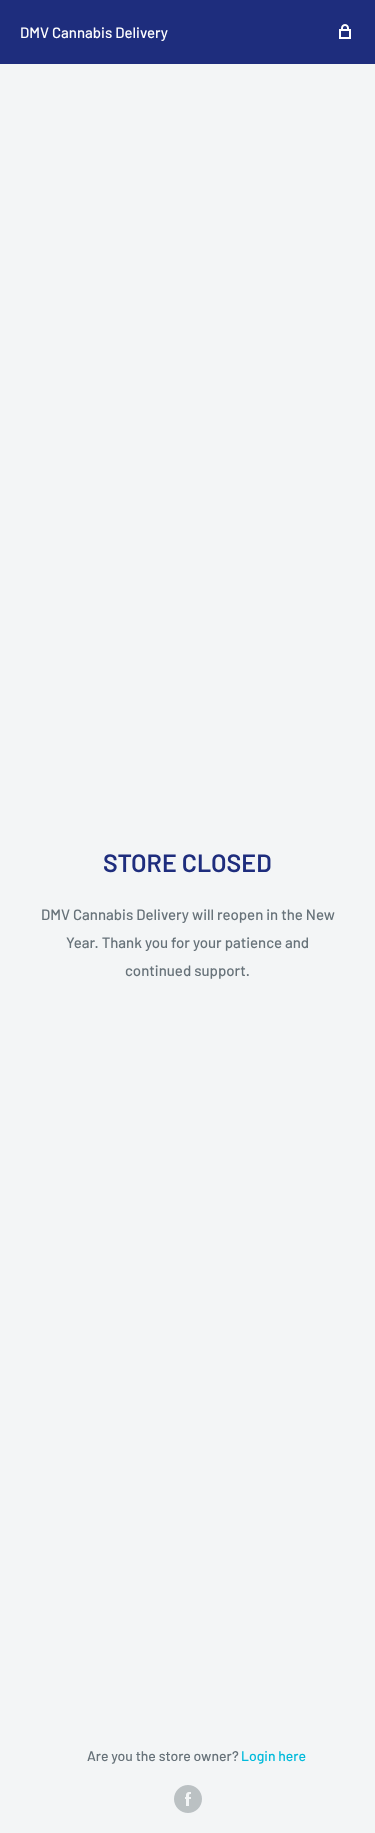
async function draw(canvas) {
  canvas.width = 375;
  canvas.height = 1833;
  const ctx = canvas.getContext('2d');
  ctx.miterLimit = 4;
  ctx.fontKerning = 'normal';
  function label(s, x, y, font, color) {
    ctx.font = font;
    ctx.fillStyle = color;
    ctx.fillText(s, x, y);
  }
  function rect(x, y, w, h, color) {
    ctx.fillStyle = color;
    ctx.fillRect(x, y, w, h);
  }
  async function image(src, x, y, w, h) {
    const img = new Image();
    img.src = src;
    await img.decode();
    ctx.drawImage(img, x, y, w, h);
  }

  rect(0, 0, 375, 1833, '#f3f5f6');
  rect(0, 0, 375, 64, '#1e2d7d');
  label('DMV Cannabis Delivery', 20, 38, '500 15px Barlow', '#fff');
  await image('assets/img1.png', 339, 24, 12, 15);
  label('STORE CLOSED', 103, 872, '600 25px Barlow', '#1e2d7d');
  label('DMV Cannabis Delivery will reopen in the New', 41, 920, '500 15px Barlow', '#677279');
  label('Year. Thank you for your patience and', 66, 948, '500 15px Barlow', '#677279');
  label('continued support.', 125, 976, '500 15px Barlow', '#677279');
  label('Are you the store owner?', 87, 1761, '500 14px Barlow', '#677279');
  label('Login here', 241, 1761, '500 14px Barlow', '#00badb');
  await image('assets/img2.png', 174, 1785, 28, 28);
}

draw(document.querySelector('canvas'));
